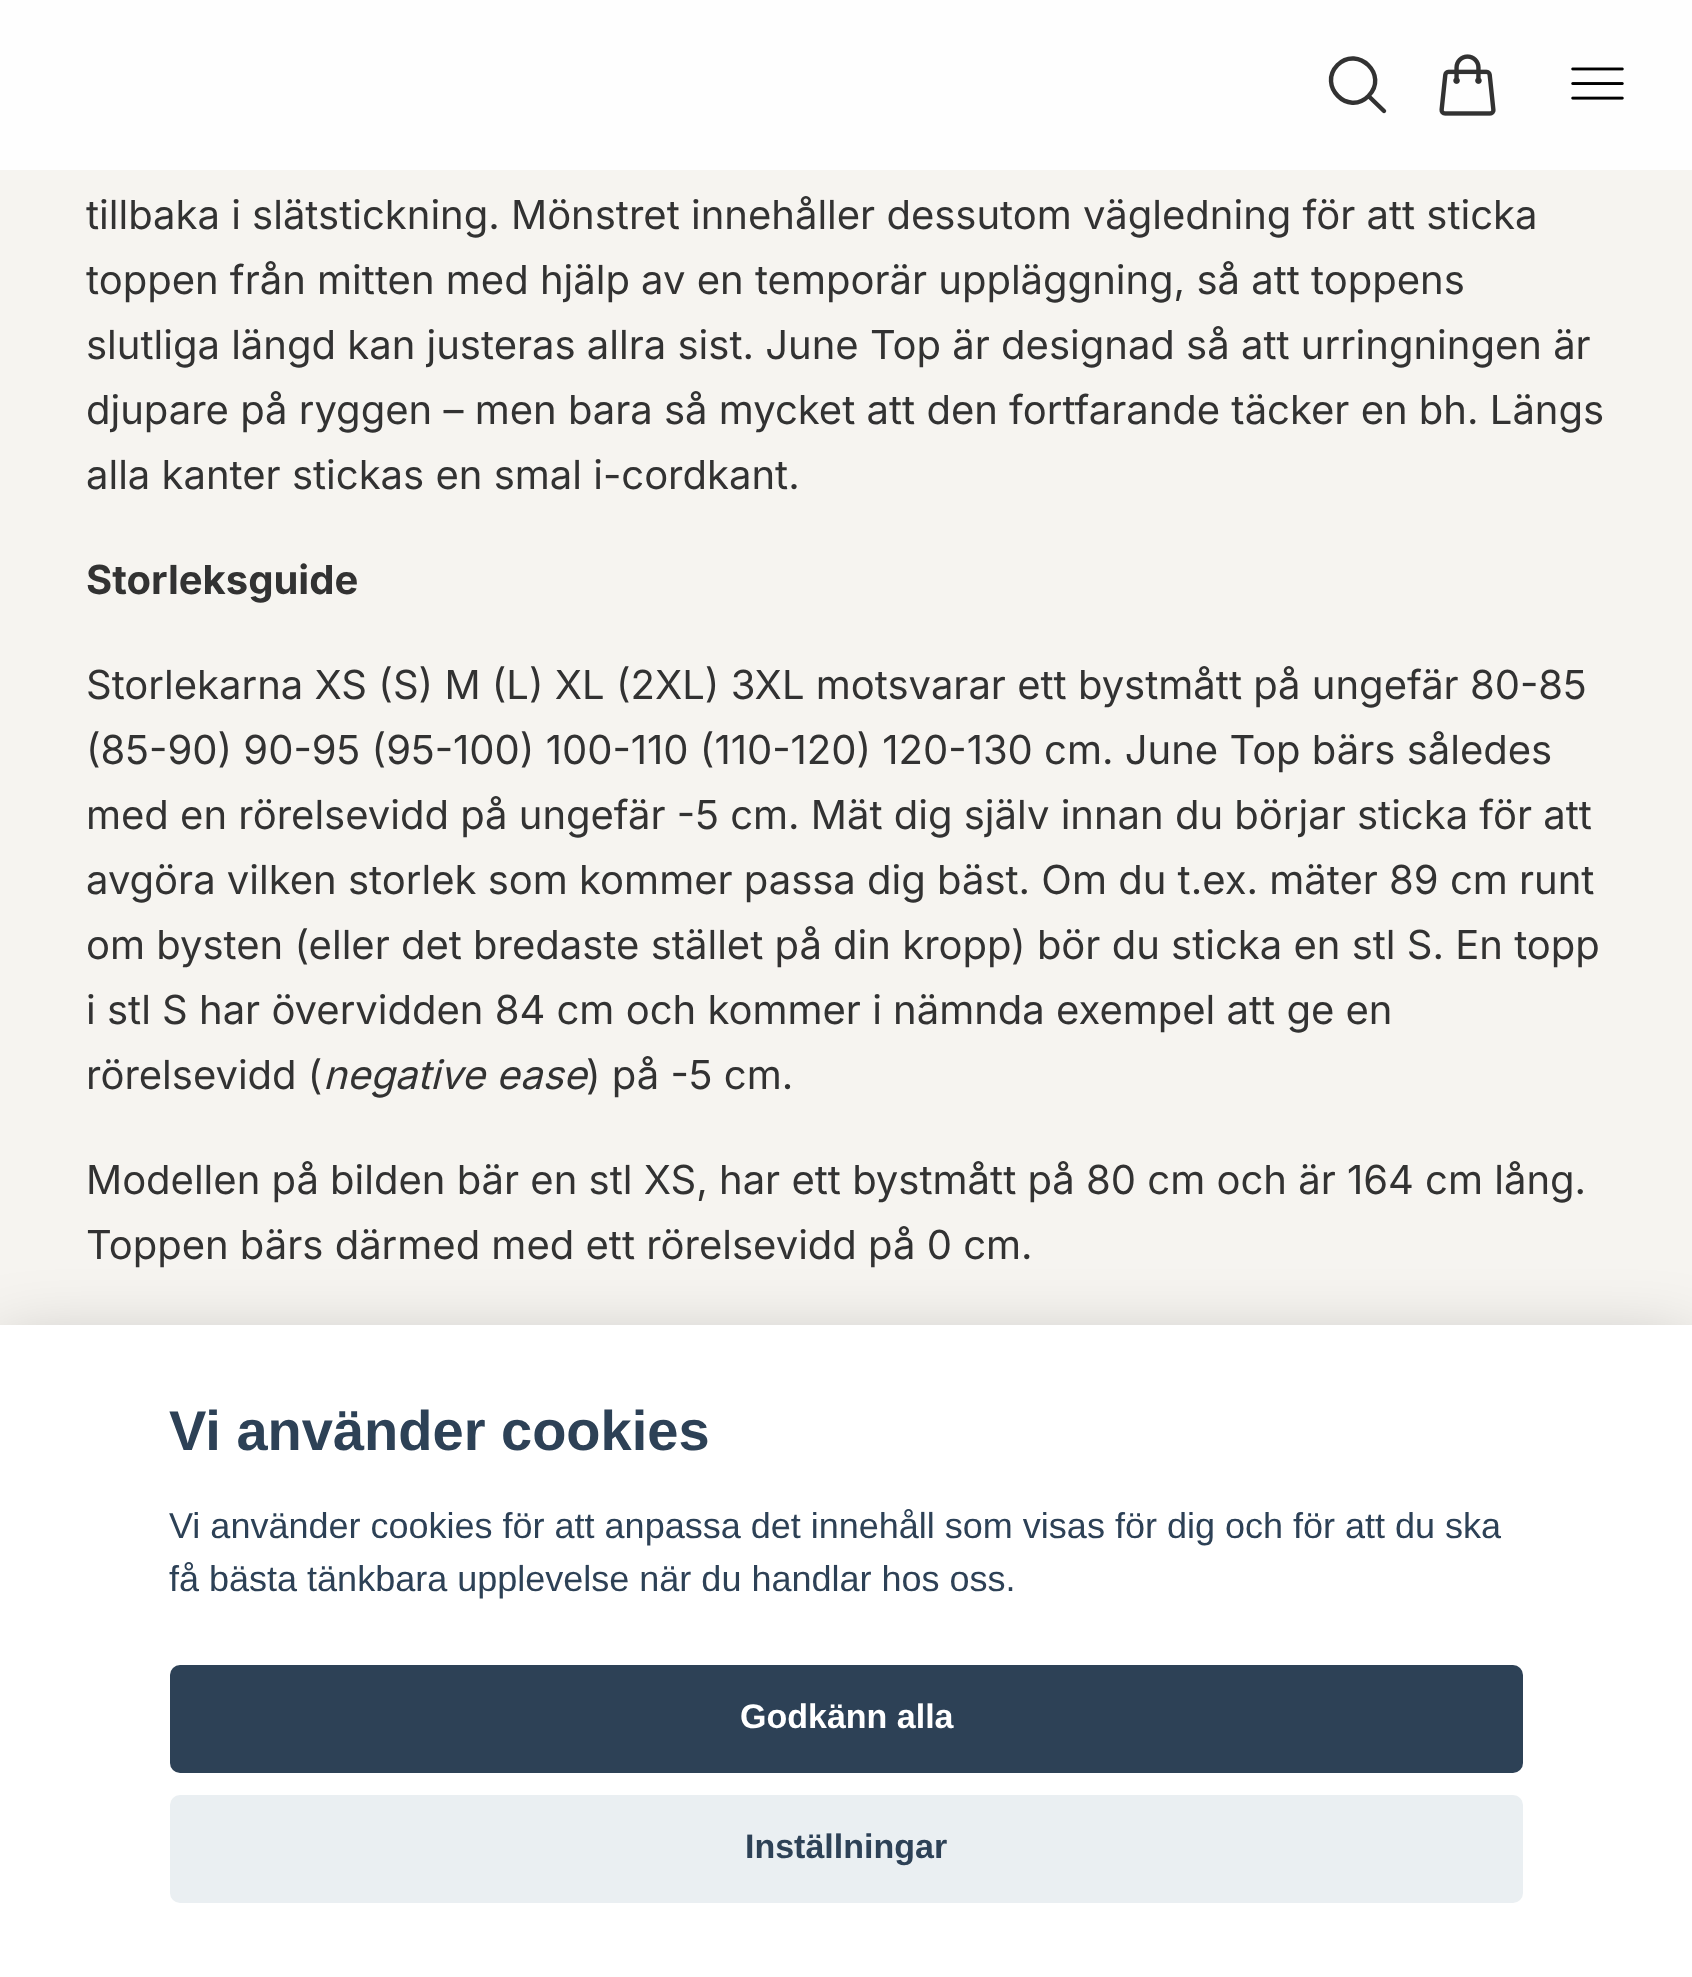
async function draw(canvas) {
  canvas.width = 1692;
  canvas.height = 1977;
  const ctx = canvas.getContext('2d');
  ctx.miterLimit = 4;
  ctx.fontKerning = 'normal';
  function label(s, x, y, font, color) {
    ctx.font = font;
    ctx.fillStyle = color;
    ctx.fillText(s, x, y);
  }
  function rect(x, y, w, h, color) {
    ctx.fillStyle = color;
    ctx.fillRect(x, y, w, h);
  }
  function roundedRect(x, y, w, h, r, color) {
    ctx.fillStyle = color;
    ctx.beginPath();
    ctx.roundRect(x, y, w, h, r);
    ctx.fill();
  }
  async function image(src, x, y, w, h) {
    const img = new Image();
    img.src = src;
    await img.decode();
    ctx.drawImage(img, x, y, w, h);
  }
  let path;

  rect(0, 0, 1692, 1977, '#f6f4f0');
  rect(0, 0, 1692, 170, '#ffffffe6');
  path = new Path2D('M1384 111L1368.5 96M1368.5 96C1389 75.5 1358 45 1337.5 65C1317.5 85.5 1348 116.5 1368.5 96Z');
  ctx.strokeStyle = '#323232';
  ctx.lineWidth = 4.4;
  ctx.lineCap = 'round';
  ctx.lineJoin = 'round';
  ctx.stroke(path);
  await image('assets/img1.png', 1439, 54, 57, 62);
  await image('assets/img2.png', 1571, 67, 53, 33);
  label('tillbaka i slätstickning. Mönstret innehåller dessutom vägledning för att sticka', 86, 229, '40px Inter', '#323232');
  label('toppen från mitten med hjälp av en temporär uppläggning, så att toppens', 86, 294, '40px Inter', '#323232');
  label('slutliga längd kan justeras allra sist. June Top är designad så att urringningen är', 86, 359, '40px Inter', '#323232');
  label('djupare på ryggen – men bara så mycket att den fortfarande täcker en bh. Längs', 86, 424, '40px Inter', '#323232');
  label('alla kanter stickas en smal i-cordkant.', 86, 489, '40px Inter', '#323232');
  label('Storleksguide', 86, 594, 'bold 40px Inter', '#323232');
  label('Storlekarna XS (S) M (L) XL (2XL) 3XL motsvarar ett bystmått på ungefär 80-85', 86, 699, '40px Inter', '#323232');
  label('(85-90) 90-95 (95-100) 100-110 (110-120) 120-130 cm. June Top bärs således', 86, 764, '40px Inter', '#323232');
  label('med en rörelsevidd på ungefär -5 cm. Mät dig själv innan du börjar sticka för att', 86, 829, '40px Inter', '#323232');
  label('avgöra vilken storlek som kommer passa dig bäst. Om du t.ex. mäter 89 cm runt', 86, 894, '40px Inter', '#323232');
  label('om bysten (eller det bredaste stället på din kropp) bör du sticka en stl S. En topp', 86, 959, '40px Inter', '#323232');
  label('i stl S har övervidden 84 cm och kommer i nämnda exempel att ge en', 86, 1024, '40px Inter', '#323232');
  label('rörelsevidd (', 86, 1089, '40px Inter', '#323232');
  label('negative ease', 323, 1089, 'italic 40px Inter', '#323232');
  label(') på -5 cm.', 586, 1089, '40px Inter', '#323232');
  label('Modellen på bilden bär en stl XS, har ett bystmått på 80 cm och är 164 cm lång.', 86, 1194, '40px Inter', '#323232');
  label('Toppen bärs därmed med ett rörelsevidd på 0 cm.', 86, 1259, '40px Inter', '#323232');
  ctx.fillStyle = '#02020347';
  ctx.filter = 'blur(37.5px)';
  ctx.beginPath();
  ctx.rect(0, 1350, 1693, 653);
  ctx.fill();
  ctx.filter = 'none';
  rect(0, 1325, 1692, 652, '#fff');
  label('Vi använder cookies', 169, 1450, 'bold 56px Liberation Sans', '#2d4156');
  label('Vi använder cookies för att anpassa det innehåll som visas för dig och för att du ska', 169, 1538, '36px Liberation Sans', '#2d4156');
  label('få bästa tänkbara upplevelse när du handlar hos oss.', 169, 1591, '36px Liberation Sans', '#2d4156');
  roundedRect(170, 1665, 1353, 108, 10, '#2d4156');
  label('Godkänn alla', 740, 1728, 'bold 34px Liberation Sans', '#fff');
  roundedRect(170, 1795, 1353, 108, 10, '#eaeff2');
  label('Inställningar', 745, 1858, 'bold 34px Liberation Sans', '#2d4156');
}

draw(document.querySelector('canvas'));
